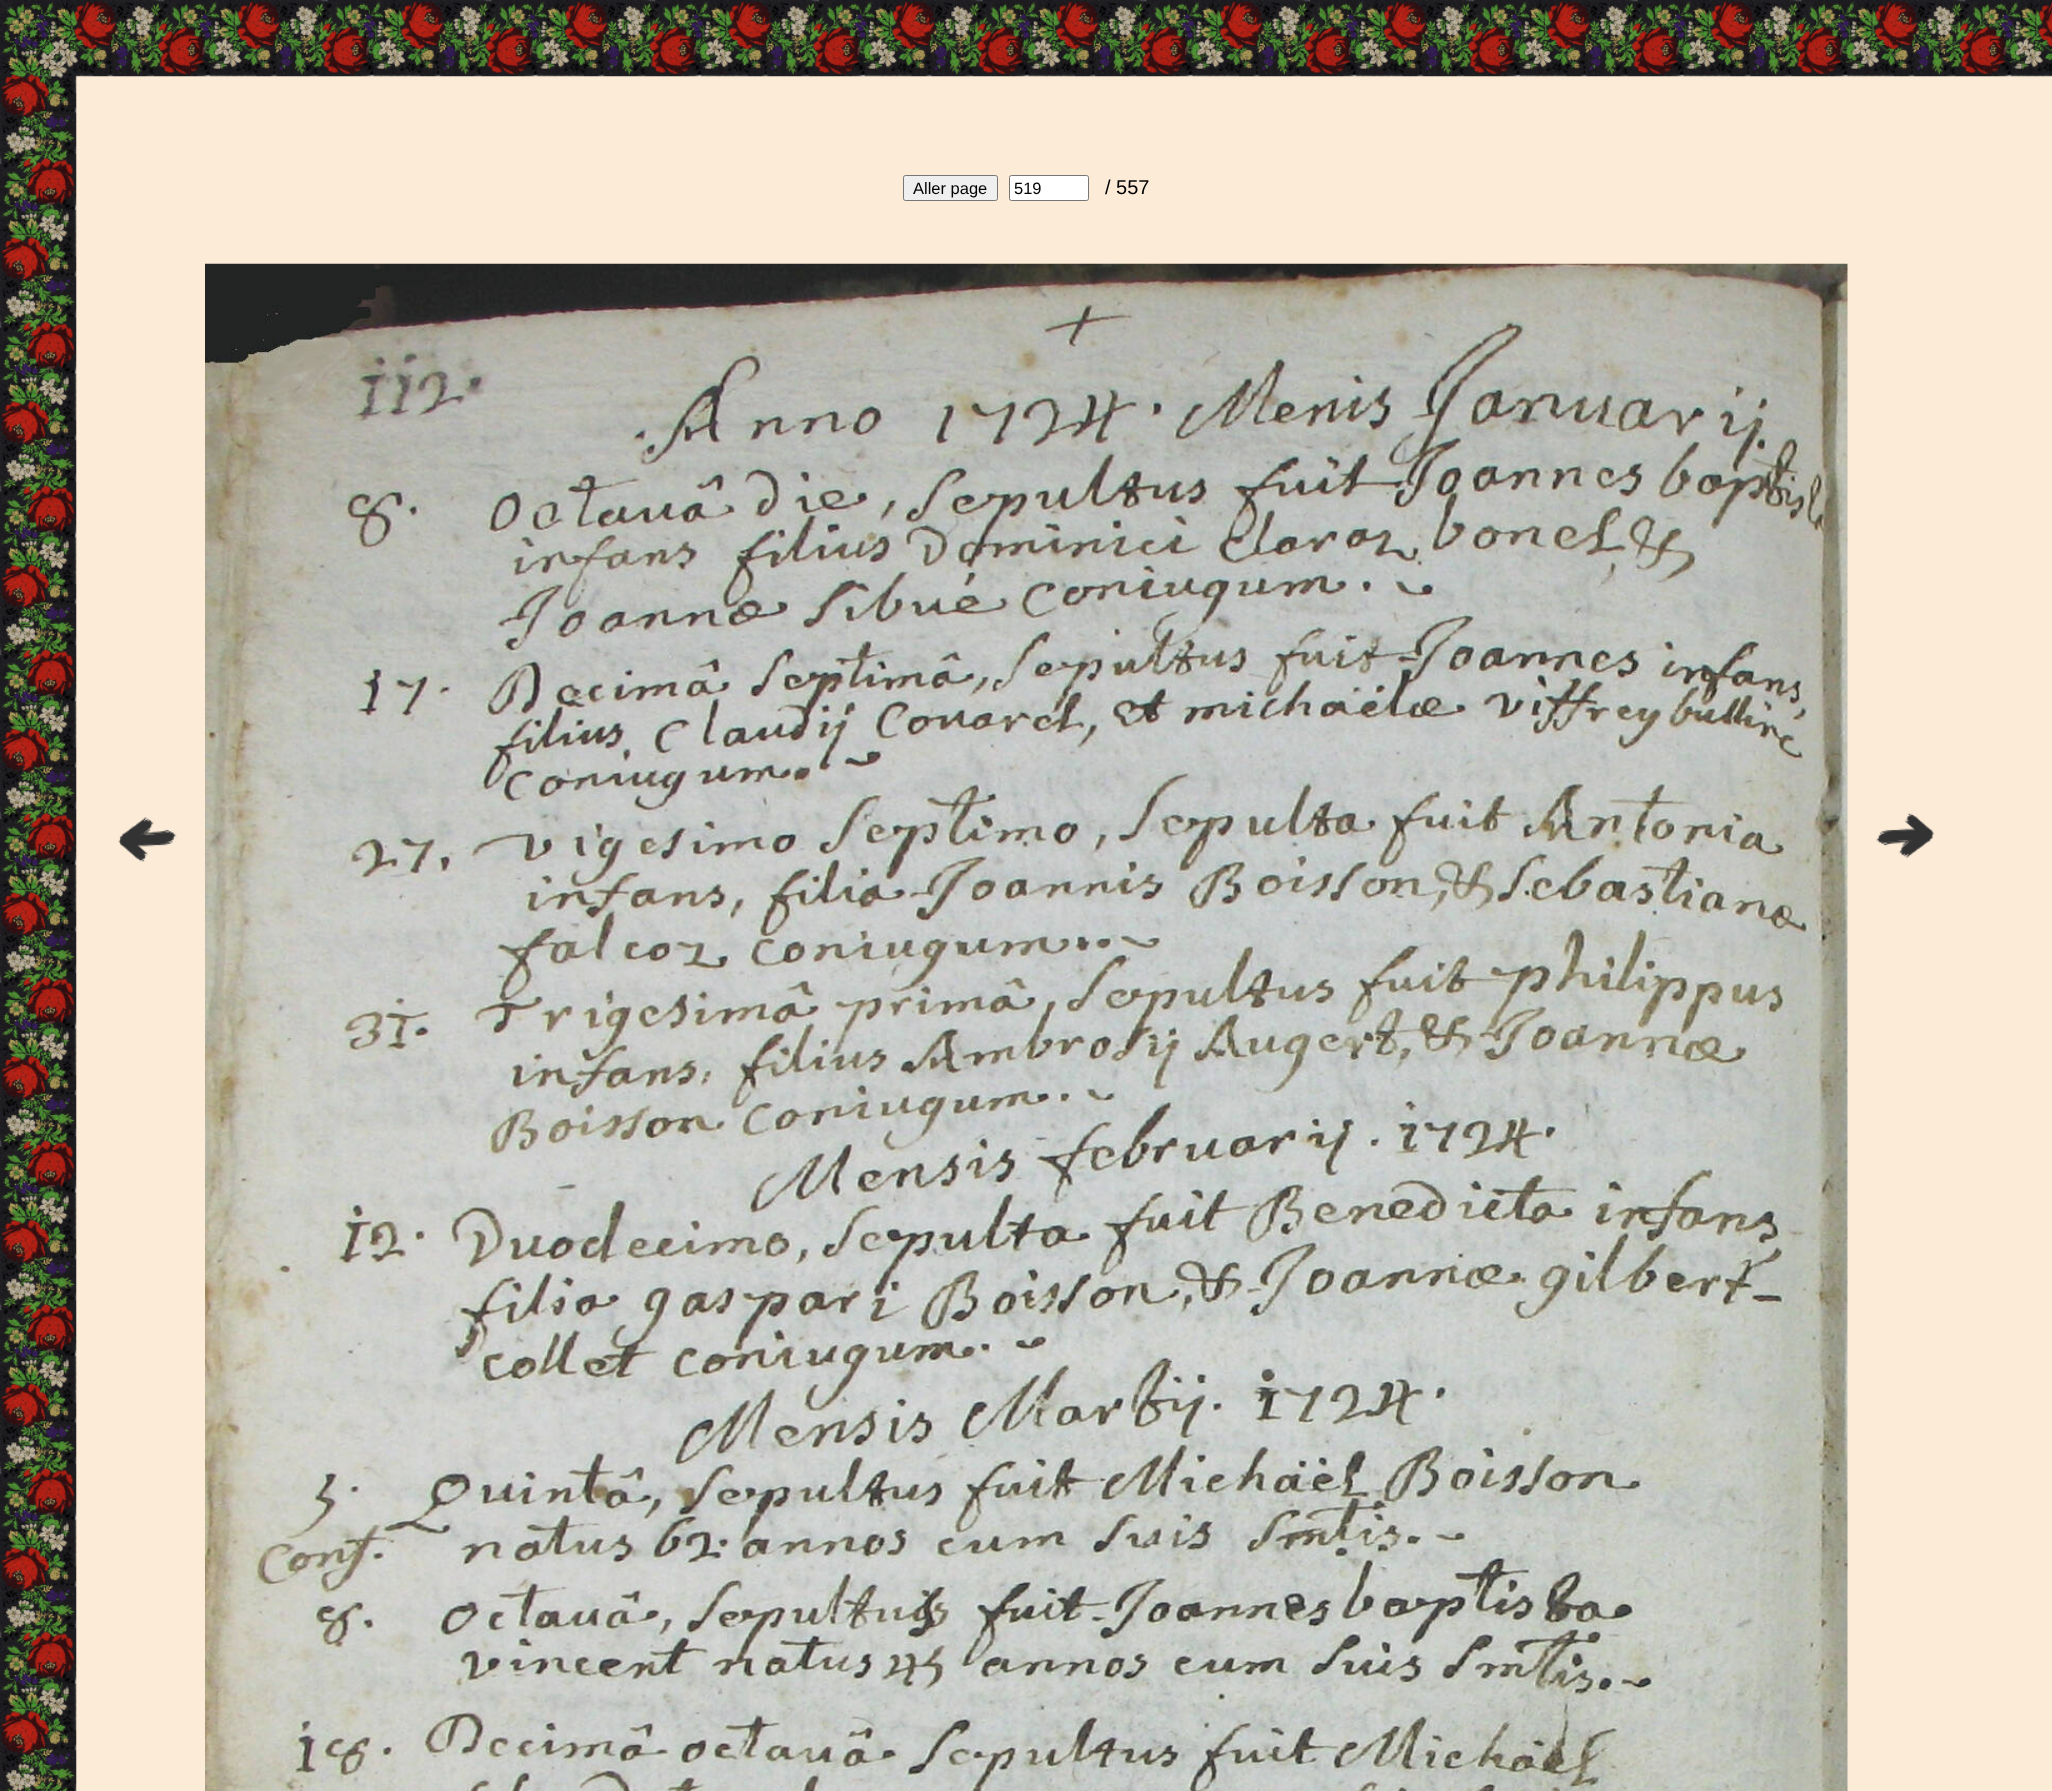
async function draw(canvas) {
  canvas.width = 2052;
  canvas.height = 1791;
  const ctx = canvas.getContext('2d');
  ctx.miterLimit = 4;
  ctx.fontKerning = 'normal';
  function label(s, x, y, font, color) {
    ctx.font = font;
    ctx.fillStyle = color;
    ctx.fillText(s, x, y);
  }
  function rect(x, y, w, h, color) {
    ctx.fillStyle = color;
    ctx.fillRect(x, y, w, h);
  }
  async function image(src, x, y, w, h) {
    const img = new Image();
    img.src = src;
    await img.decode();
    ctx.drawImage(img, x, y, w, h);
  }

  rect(0, 0, 2052, 1791, '#fbebd7');
  await image('assets/img1.png', 0, 76, 77, 1715);
  await image('assets/img2.png', 0, 0, 2052, 77);
  await image('assets/img3.png', 0, 0, 77, 77);
  ctx.fillStyle = '#efefef';
  ctx.beginPath();
  ctx.roundRect(903.5, 175.5, 94, 25, 2);
  ctx.fill();
  ctx.strokeStyle = '#767676';
  ctx.stroke();
  label('Aller page', 913, 194, '16.5px Liberation Sans', '#000');
  ctx.fillStyle = '#fff';
  ctx.beginPath();
  ctx.roundRect(1009.5, 175.5, 79, 25, 2);
  ctx.fill();
  ctx.stroke();
  label('519', 1014, 194, '16.5px Liberation Sans', '#000');
  label('/ 557', 1105, 194, '20px Liberation Sans', '#000');
  await image('assets/img4.png', 205, 263, 1643, 1528);
  await image('assets/img5.png', 118, 817, 59, 45);
  await image('assets/img6.png', 1876, 813, 58, 45);
}

draw(document.querySelector('canvas'));
